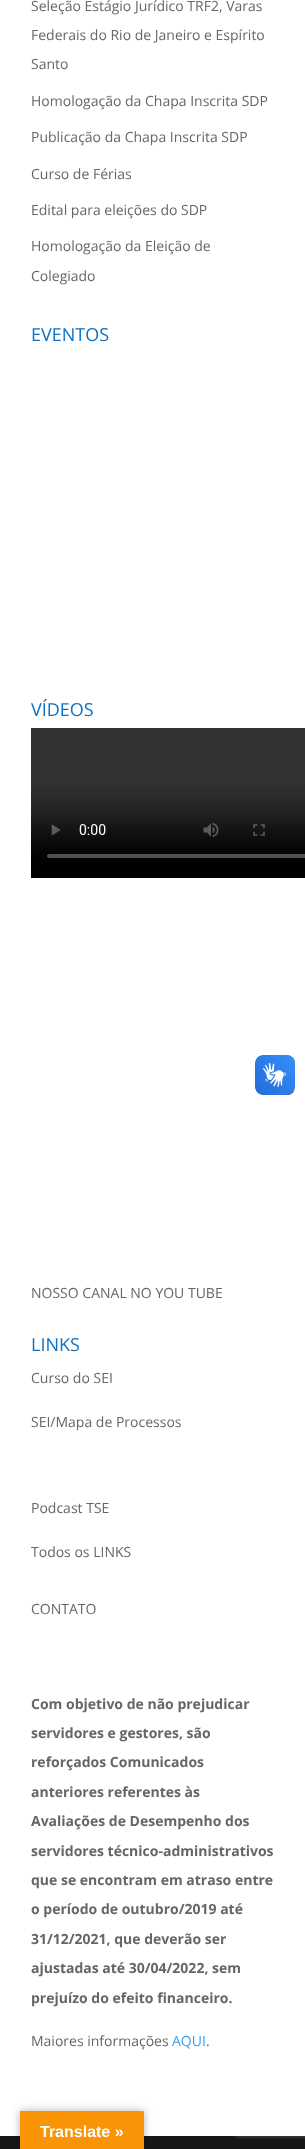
async function draw(canvas) {
  canvas.width = 305;
  canvas.height = 2149;
  const ctx = canvas.getContext('2d');
  ctx.miterLimit = 4;
  ctx.fontKerning = 'normal';
  function label(s, x, y, font, color) {
    ctx.font = font;
    ctx.fillStyle = color;
    ctx.fillText(s, x, y);
  }
  function rect(x, y, w, h, color) {
    ctx.fillStyle = color;
    ctx.fillRect(x, y, w, h);
  }
  async function image(src, x, y, w, h) {
    const img = new Image();
    img.src = src;
    await img.decode();
    ctx.drawImage(img, x, y, w, h);
  }

  rect(0, 0, 305, 2149, '#171717');
  ctx.fillStyle = '#808080';
  ctx.filter = 'blur(2.5px)';
  ctx.beginPath();
  ctx.roundRect(235, 2075, 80, 60, 2);
  ctx.fill();
  ctx.filter = 'none';
  rect(0, 0, 305, 2136, '#fff');
  label('Seleção Estágio Jurídico TRF2, Varas', 31, 11, '14px Open Sans', '#666');
  label('Federais do Rio de Janeiro e Espírito', 31, 40, '14px Open Sans', '#666');
  label('Santo', 31, 69, '14px Open Sans', '#666');
  label('Homologação da Chapa Inscrita SDP', 31, 106, '14px Open Sans', '#666');
  label('Publicação da Chapa Inscrita SDP', 31, 142, '14px Open Sans', '#666');
  label('Curso de Férias', 31, 179, '14px Open Sans', '#666');
  label('Edital para eleições do SDP', 31, 215, '14px Open Sans', '#666');
  label('Homologação da Eleição de', 31, 251, '14px Open Sans', '#666');
  label('Colegiado', 31, 281, '14px Open Sans', '#666');
  label('EVENTOS', 31, 341, '18px Open Sans', '#0c71c3');
  label('VÍDEOS', 31, 716, '18px Open Sans', '#0c71c3');
  await image('assets/img1.png', 31, 728, 274, 150);
  label('NOSSO CANAL NO YOU TUBE', 31, 1298, '14px Open Sans', '#666');
  label('LINKS', 31, 1351, '18px Open Sans', '#0c71c3');
  label('Curso do SEI', 31, 1383, '14px Open Sans', '#666');
  label('SEI/Mapa de Processos', 31, 1427, '14px Open Sans', '#666');
  label('Podcast TSE', 31, 1513, '14px Open Sans', '#666');
  label('Todos os LINKS', 31, 1557, '14px Open Sans', '#666');
  label('CONTATO', 31, 1614, '14px Open Sans', '#666');
  label('Com objetivo de não prejudicar', 31, 1709, 'bold 14px Open Sans', '#666');
  label('servidores e gestores, são', 31, 1738, 'bold 14px Open Sans', '#666');
  label('reforçados Comunicados', 31, 1767, 'bold 14px Open Sans', '#666');
  label('anteriores referentes às', 31, 1797, 'bold 14px Open Sans', '#666');
  label('Avaliações de Desempenho dos', 31, 1826, 'bold 14px Open Sans', '#666');
  label('servidores técnico-administrativos', 31, 1856, 'bold 14px Open Sans', '#666');
  label('que se encontram em atraso entre', 31, 1885, 'bold 14px Open Sans', '#666');
  label('o período de outubro/2019 até', 31, 1914, 'bold 14px Open Sans', '#666');
  label('31/12/2021, que deverão ser', 31, 1944, 'bold 14px Open Sans', '#666');
  label('ajustadas até 30/04/2022, sem', 31, 1973, 'bold 14px Open Sans', '#666');
  label('prejuízo do efeito financeiro.', 31, 2003, 'bold 14px Open Sans', '#666');
  label('Maiores informações', 31, 2046, '14px Open Sans', '#666');
  label('AQUI', 172, 2046, '14px Open Sans', '#2ea3f2');
  label('.', 206, 2046, '14px Open Sans', '#666');
  await image('assets/img2.png', 255, 1055, 40, 40);
  await image('assets/img3.png', 255, 1055, 40, 40);
  ctx.fillStyle = '#0000004d';
  ctx.filter = 'blur(4.5px)';
  ctx.beginPath();
  ctx.rect(20, 2111, 124, 38);
  ctx.fill();
  ctx.filter = 'none';
  rect(20, 2111, 124, 38, '#f89406');
  label('Translate »', 40, 2137, 'bold 16px Liberation Sans', '#fff');
}

draw(document.querySelector('canvas'));
